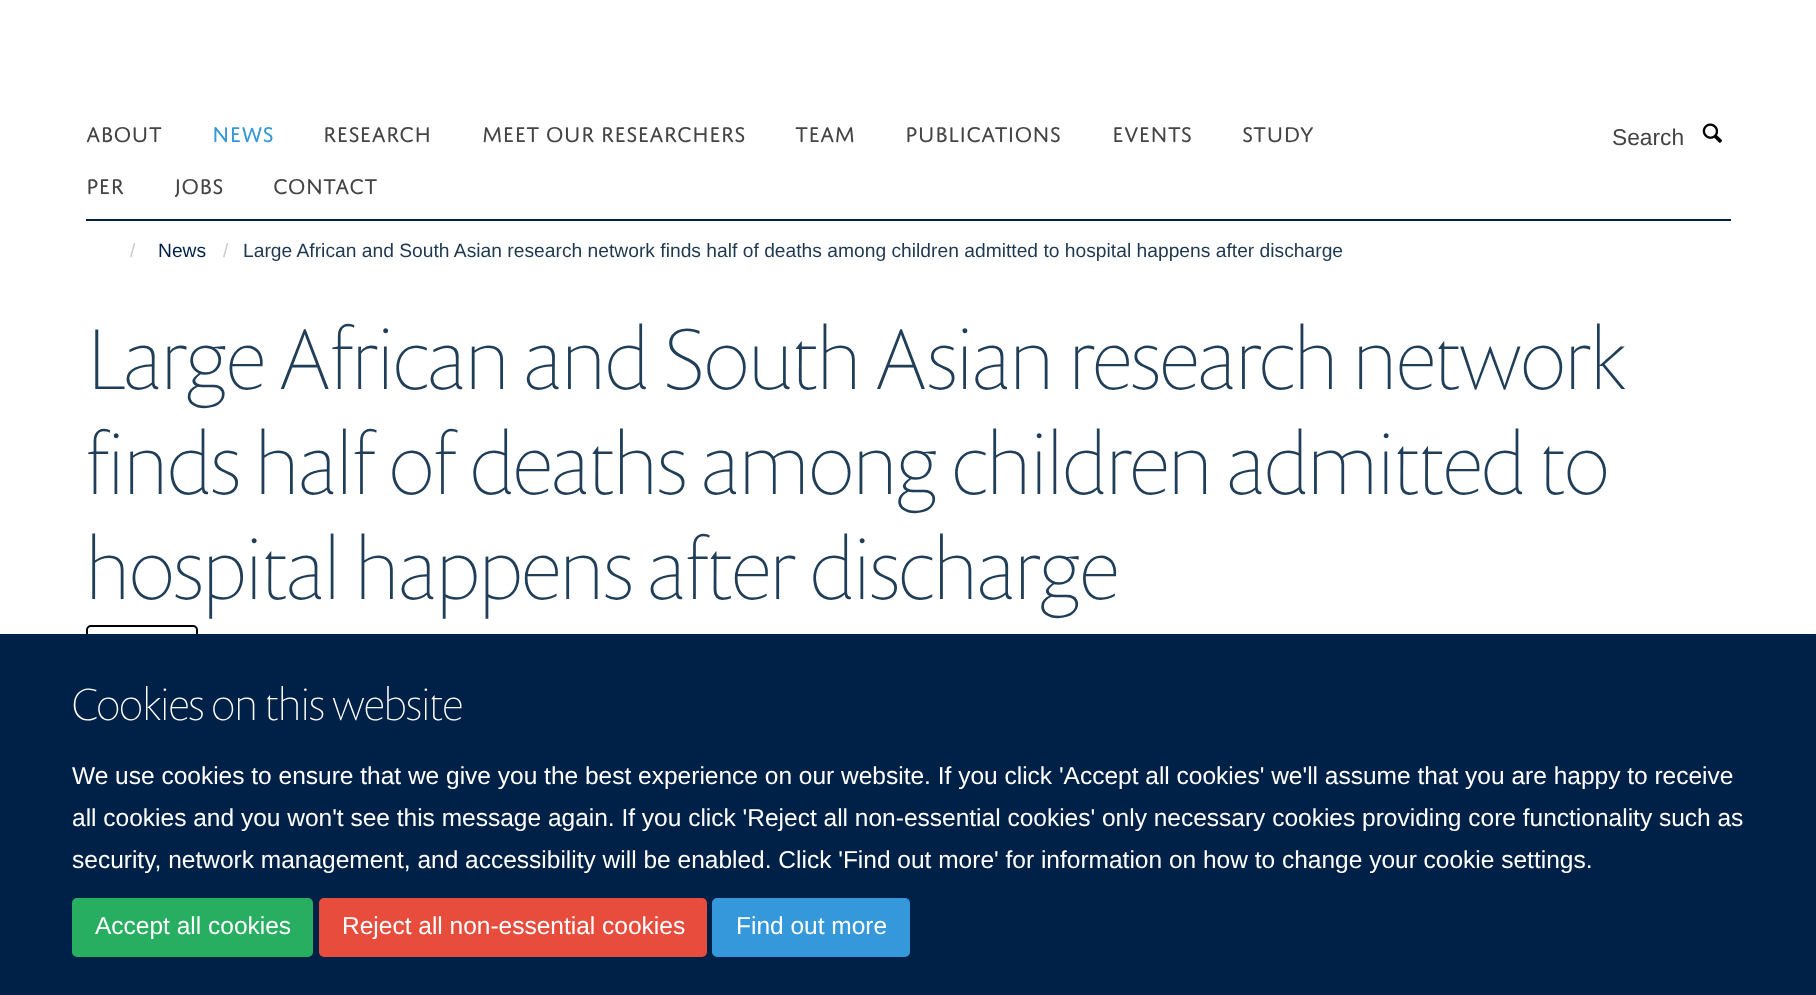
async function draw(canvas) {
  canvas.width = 1816;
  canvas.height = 995;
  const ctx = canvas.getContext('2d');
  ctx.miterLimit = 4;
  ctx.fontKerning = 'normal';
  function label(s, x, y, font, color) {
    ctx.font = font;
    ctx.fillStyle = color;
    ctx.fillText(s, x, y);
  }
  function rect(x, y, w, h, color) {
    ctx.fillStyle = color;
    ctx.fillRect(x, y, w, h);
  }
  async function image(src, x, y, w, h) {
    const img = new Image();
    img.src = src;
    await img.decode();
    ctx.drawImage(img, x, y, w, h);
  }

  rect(0, 0, 1816, 995, '#fff');
  rect(86, 219, 1645, 2, '#002147');
  label('ABOUT', 86, 142, '22.75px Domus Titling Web', '#444');
  label('NEWS', 212, 142, '22.75px Domus Titling Web', '#3498db');
  label('RESEARCH', 323, 142, '22.75px Domus Titling Web', '#444');
  label('MEET OUR RESEARCHERS', 482, 142, '22.75px Domus Titling Web', '#444');
  label('TEAM', 795, 142, '22.75px Domus Titling Web', '#444');
  label('PUBLICATIONS', 905, 142, '22.75px Domus Titling Web', '#444');
  label('EVENTS', 1112, 142, '22.75px Domus Titling Web', '#444');
  label('STUDY', 1242, 142, '22.75px Domus Titling Web', '#444');
  label('PER', 86, 194, '22.75px Domus Titling Web', '#444');
  label('JOBS', 174, 194, '22.75px Domus Titling Web', '#444');
  label('CONTACT', 273, 194, '22.75px Domus Titling Web', '#444');
  label('Search', 1612, 145, '22.75px Liberation Sans', '#444');
  await image('assets/img1.png', 1702, 123, 20, 20);
  label('/', 130, 257, '19.25px Liberation Sans', '#ccc');
  label('News', 158, 257, '19.25px Liberation Sans', '#002147');
  label('/', 223, 257, '19.25px Liberation Sans', '#ccc');
  label('Large African and South Asian research network finds half of deaths among children admitted to hospital happens after discharge', 243, 257, '19.25px Liberation Sans', '#1d3850');
  label('Large African and South Asian research network', 86, 389, '100 87.5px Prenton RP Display', '#203e58');
  label('finds half of deaths among children admitted to', 86, 494, '100 87.5px Prenton RP Display', '#203e58');
  label('hospital happens after discharge', 86, 599, '100 87.5px Prenton RP Display', '#203e58');
  ctx.beginPath();
  ctx.roundRect(87, 626, 110, 36, 4);
  ctx.strokeStyle = '#000';
  ctx.lineWidth = 2;
  ctx.stroke();
  rect(0, 634, 1816, 361, '#002147');
  label('Cookies on this website', 72, 720, '100 45.5px Prenton RP Display', '#fff');
  label('We use cookies to ensure that we give you the best experience on our website. If you click \'Accept all cookies\' we\'ll assume that you are happy to receive', 72, 784, '24.5px Liberation Sans', '#fff');
  label('all cookies and you won\'t see this message again. If you click \'Reject all non-essential cookies\' only necessary cookies providing core functionality such as', 72, 826, '24.5px Liberation Sans', '#fff');
  label('security, network management, and accessibility will be enabled. Click \'Find out more\' for information on how to change your cookie settings.', 72, 868, '24.5px Liberation Sans', '#fff');
  ctx.fillStyle = '#27ae60';
  ctx.beginPath();
  ctx.roundRect(73, 899, 239, 57, 4);
  ctx.fill();
  ctx.strokeStyle = '#27ae60';
  ctx.stroke();
  label('Accept all cookies', 95, 934, '24.5px Liberation Sans', '#fff');
  ctx.fillStyle = '#e74c3c';
  ctx.beginPath();
  ctx.roundRect(320, 899, 386, 57, 4);
  ctx.fill();
  ctx.strokeStyle = '#e74c3c';
  ctx.stroke();
  label('Reject all non-essential cookies', 342, 934, '24.5px Liberation Sans', '#fff');
  ctx.fillStyle = '#3498db';
  ctx.beginPath();
  ctx.roundRect(713, 899, 196, 57, 4);
  ctx.fill();
  ctx.strokeStyle = '#3498db';
  ctx.stroke();
  label('Find out more', 736, 934, '24.5px Liberation Sans', '#fff');
}

draw(document.querySelector('canvas'));
